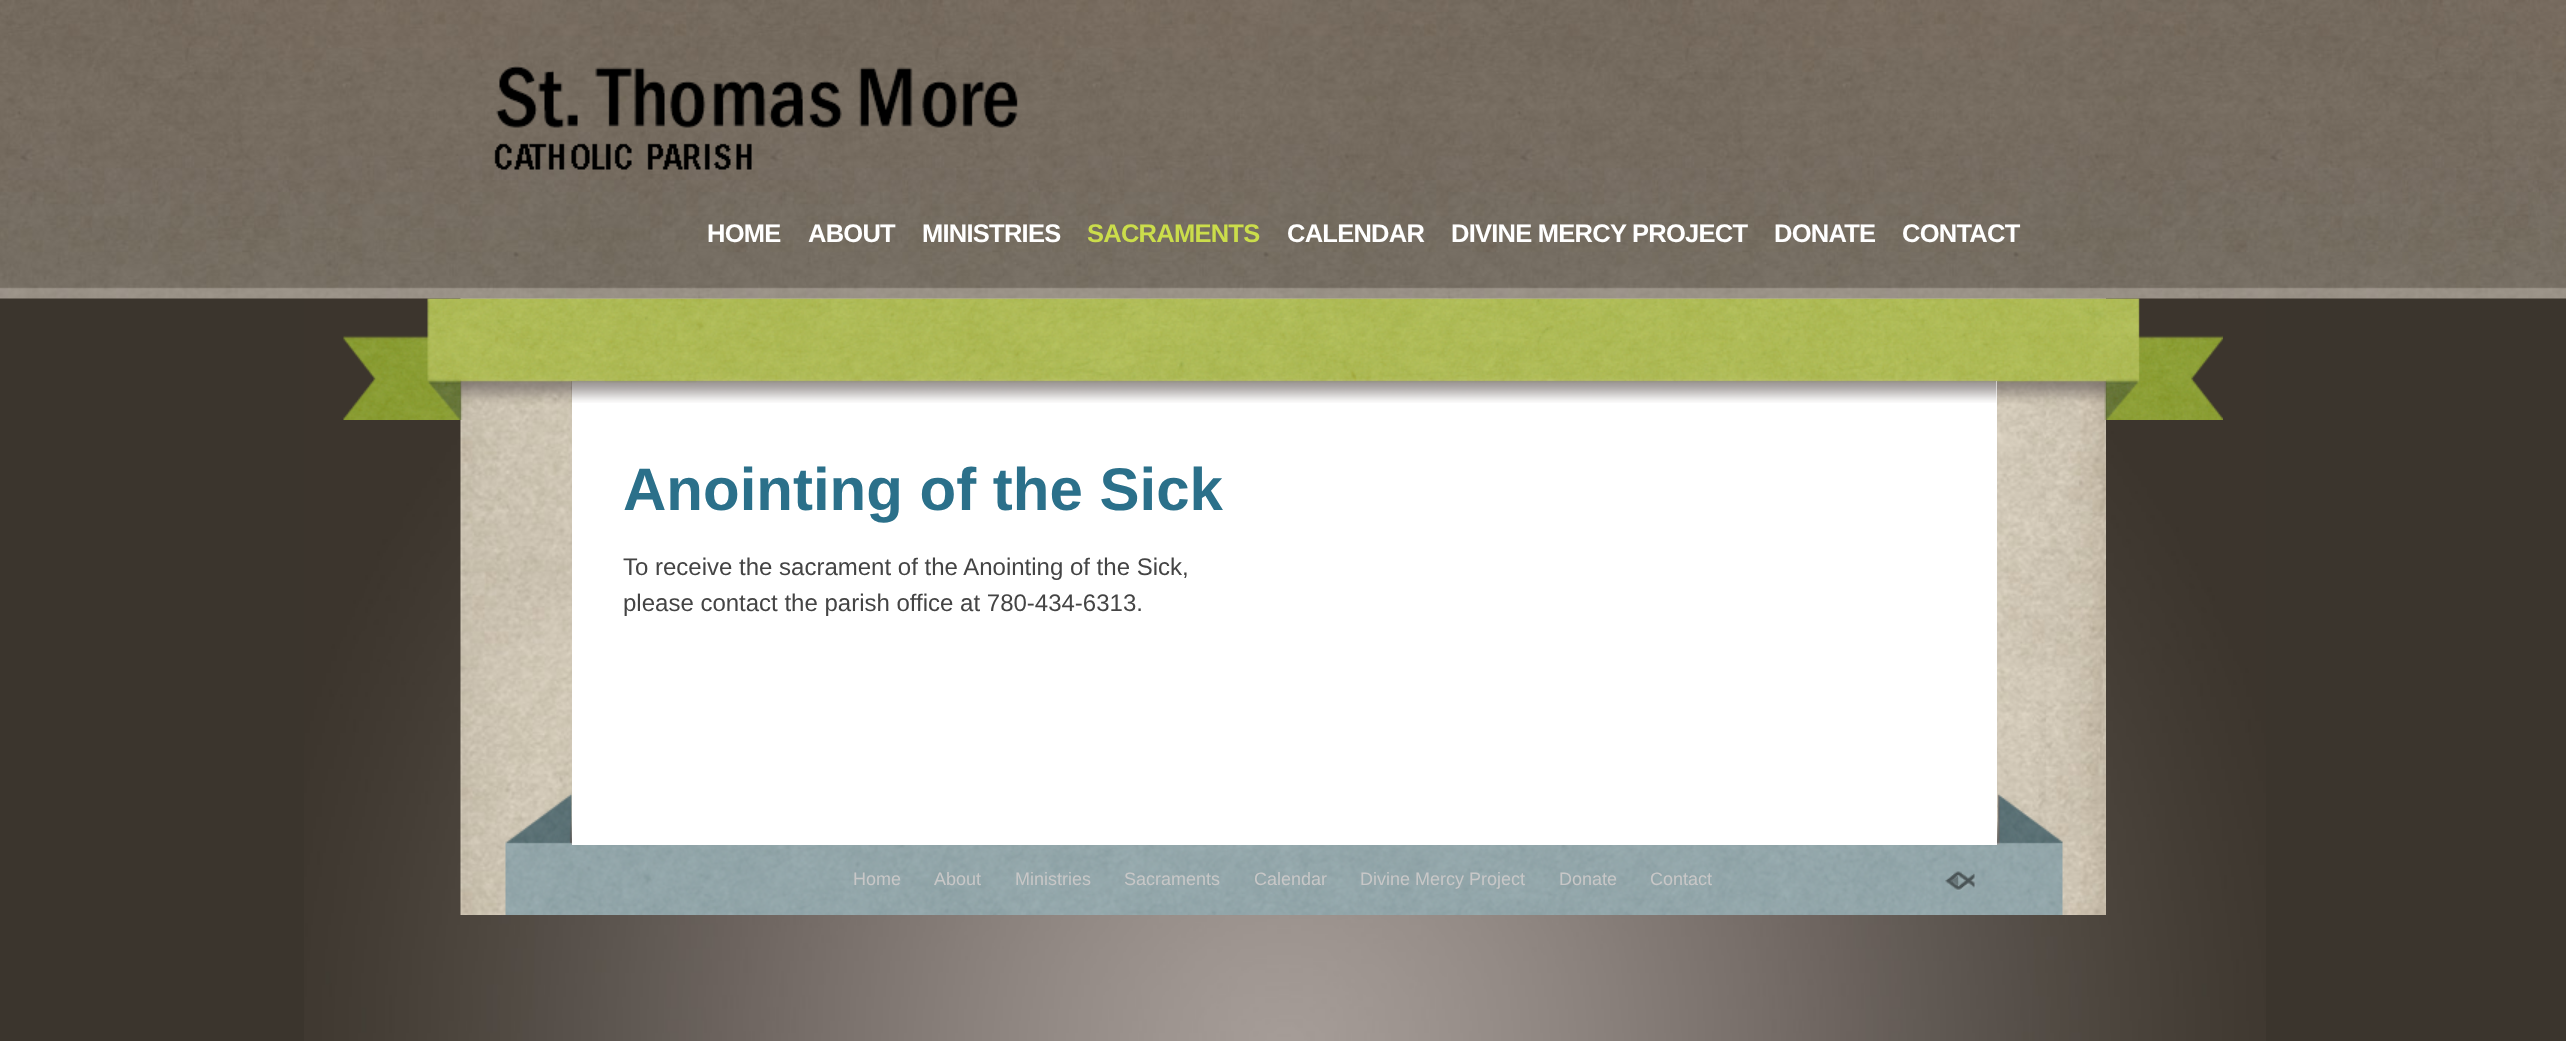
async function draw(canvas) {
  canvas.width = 2566;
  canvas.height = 1041;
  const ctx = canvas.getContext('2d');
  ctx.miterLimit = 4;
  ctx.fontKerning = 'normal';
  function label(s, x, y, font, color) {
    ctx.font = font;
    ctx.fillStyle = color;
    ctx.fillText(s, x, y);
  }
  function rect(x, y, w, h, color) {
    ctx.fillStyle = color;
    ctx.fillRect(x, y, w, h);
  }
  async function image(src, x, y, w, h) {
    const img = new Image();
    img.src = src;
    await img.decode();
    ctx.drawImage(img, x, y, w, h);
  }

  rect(0, 0, 2566, 1041, '#3b352d');
  await image('assets/img1.png', 304, 298, 1962, 743);
  await image('assets/img2.png', 460, 298, 1646, 617);
  await image('assets/img5.png', 343, 298, 1880, 122);
  await image('assets/img3.png', 0, 0, 2566, 299);
  await image('assets/img4.png', 494, 66, 524, 104);
  ctx.letterSpacing = '-0.75px';
  label('HOME', 707, 242, 'bold 25.5px Liberation Sans', '#fff');
  label('ABOUT', 808, 242, 'bold 25.5px Liberation Sans', '#fff');
  label('MINISTRIES', 922, 242, 'bold 25.5px Liberation Sans', '#fff');
  label('SACRAMENTS', 1087, 242, 'bold 25.5px Liberation Sans', '#cbdd4b');
  label('CALENDAR', 1287, 242, 'bold 25.5px Liberation Sans', '#fff');
  label('DIVINE MERCY PROJECT', 1451, 242, 'bold 25.5px Liberation Sans', '#fff');
  label('DONATE', 1774, 242, 'bold 25.5px Liberation Sans', '#fff');
  label('CONTACT', 1902, 242, 'bold 25.5px Liberation Sans', '#fff');
  await image('assets/img7.png', 505, 793, 1558, 122);
  rect(572, 381, 1425, 464, '#fff');
  await image('assets/img6.png', 571, 381, 1426, 22);
  ctx.letterSpacing = '0px';
  label('Anointing of the Sick', 623, 510, 'bold 60px Liberation Sans', '#2b708a');
  label('To receive the sacrament of the Anointing of the Sick,', 623, 575, '24px Liberation Sans', '#444');
  label('please contact the parish office at 780-434-6313.', 623, 611, '24px Liberation Sans', '#444');
  label('Home', 853, 885, '18px Liberation Sans', '#c8c7c7');
  label('About', 934, 885, '18px Liberation Sans', '#c8c7c7');
  label('Ministries', 1015, 885, '18px Liberation Sans', '#c8c7c7');
  label('Sacraments', 1124, 885, '18px Liberation Sans', '#c8c7c7');
  label('Calendar', 1254, 885, '18px Liberation Sans', '#c8c7c7');
  label('Divine Mercy Project', 1360, 885, '18px Liberation Sans', '#c8c7c7');
  label('Donate', 1559, 885, '18px Liberation Sans', '#c8c7c7');
  label('Contact', 1650, 885, '18px Liberation Sans', '#c8c7c7');
  await image('assets/img8.png', 1945, 871, 31, 20);
}

draw(document.querySelector('canvas'));
